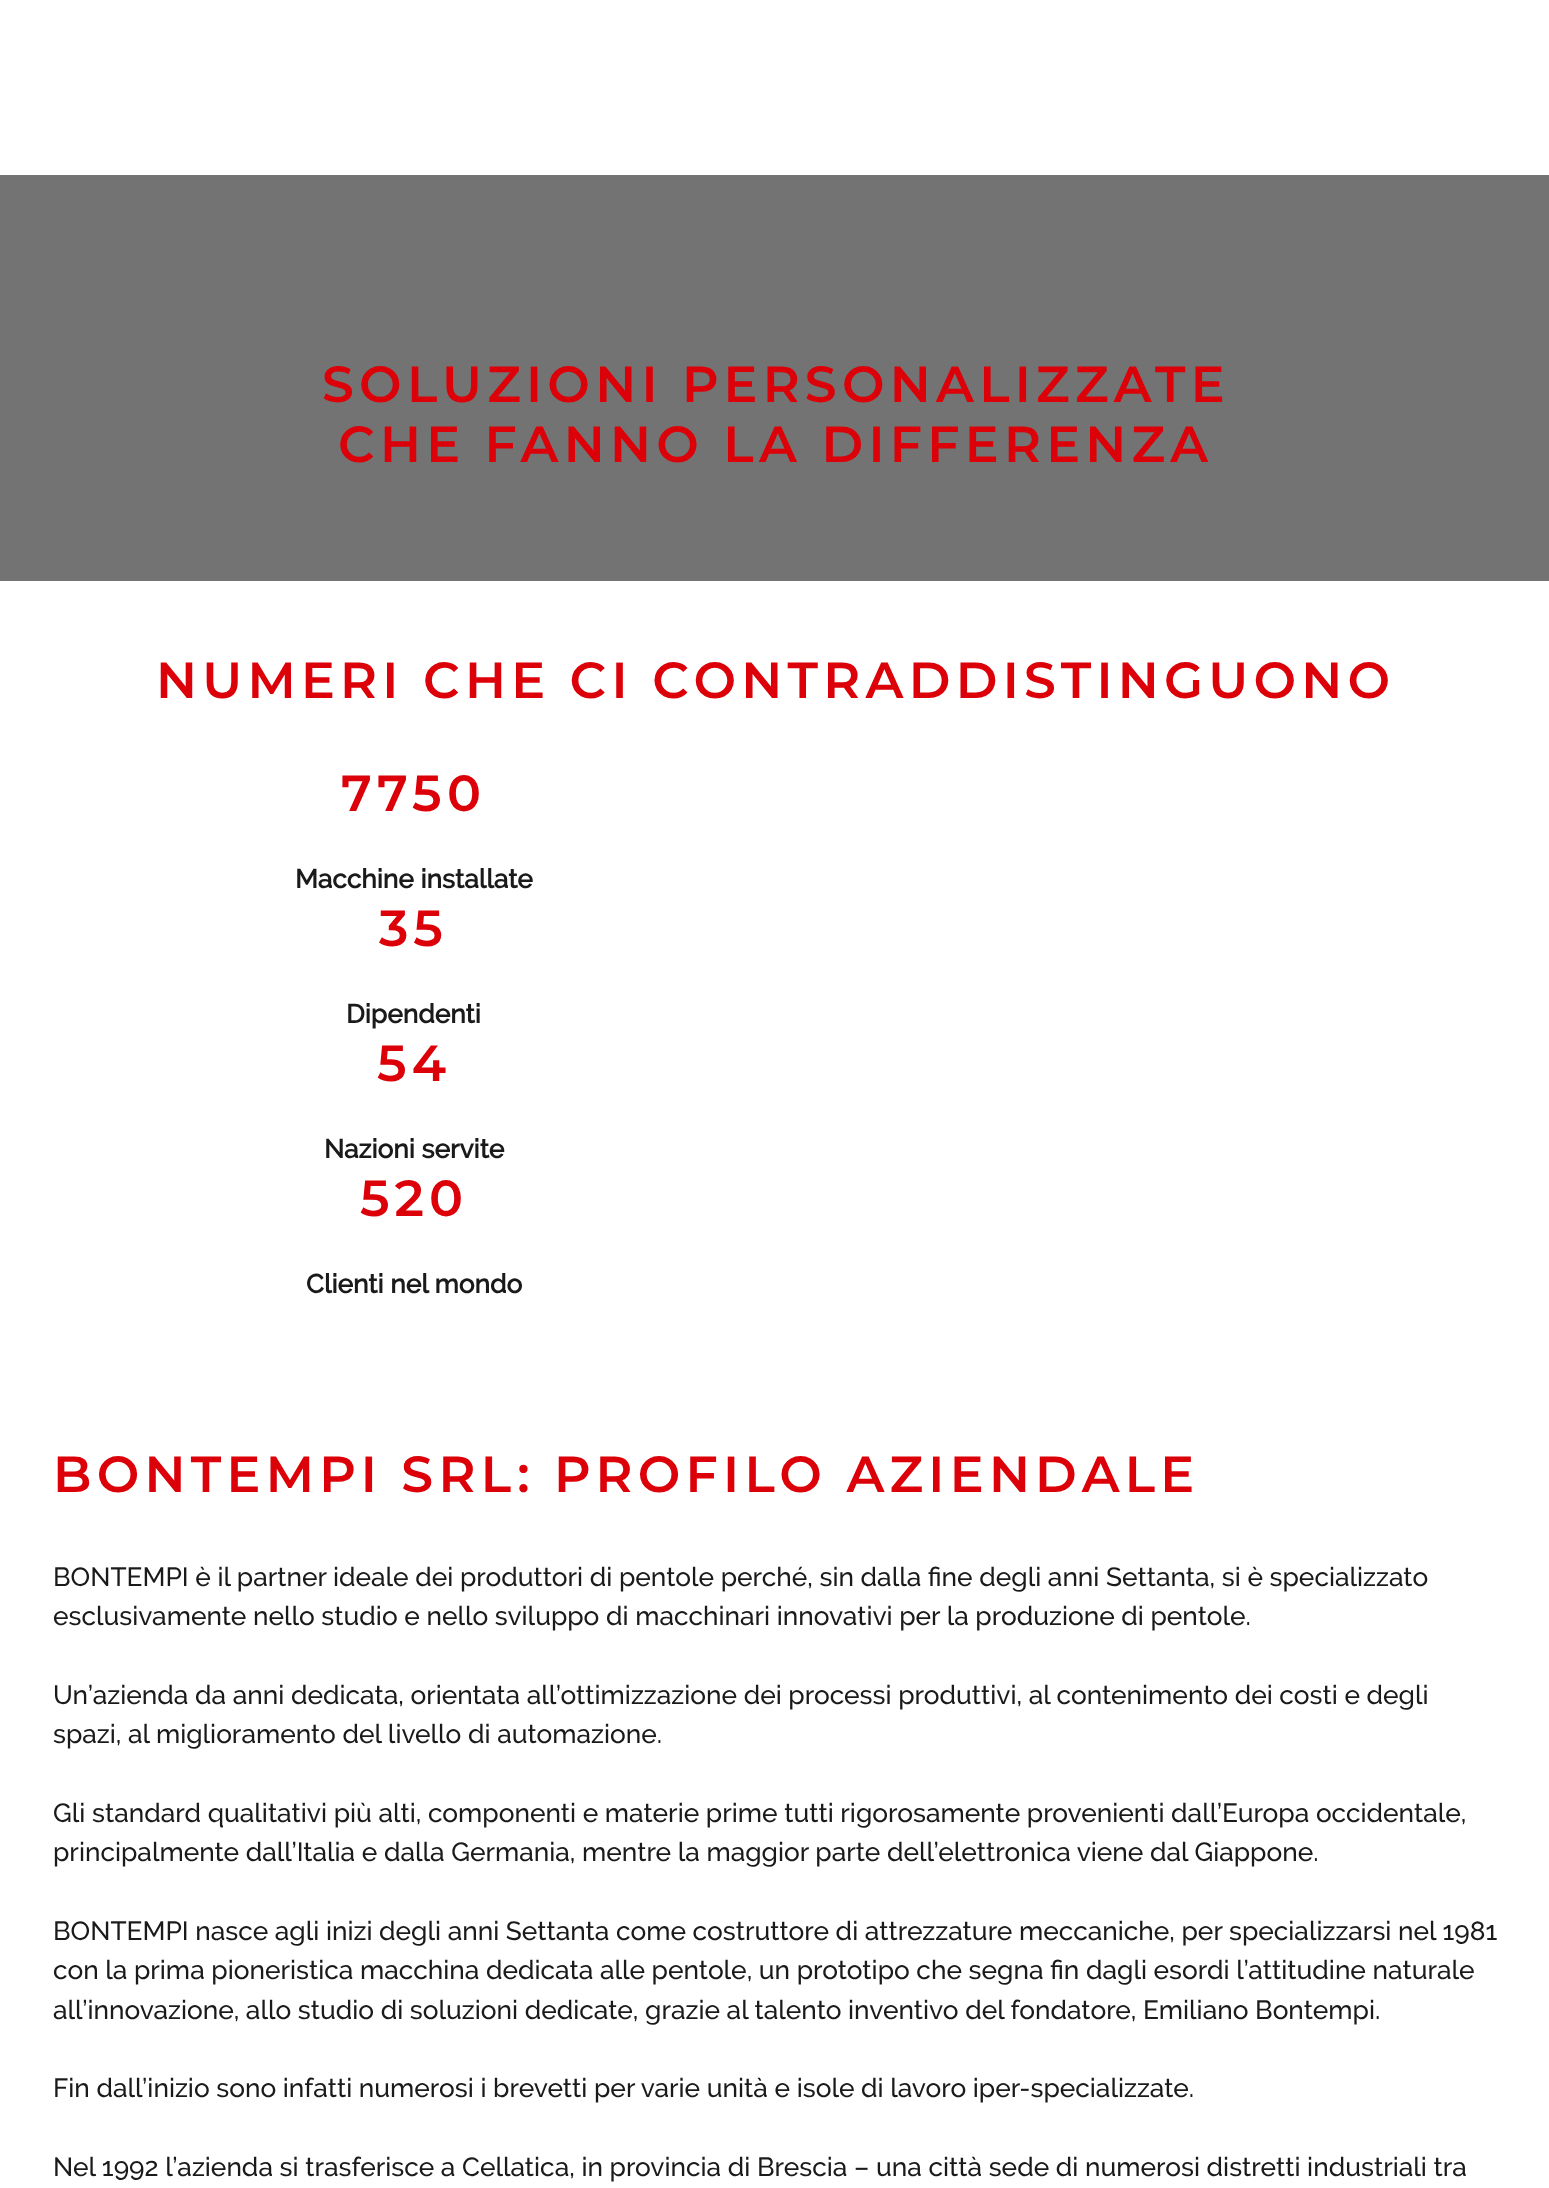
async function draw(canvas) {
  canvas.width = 1549;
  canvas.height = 2188;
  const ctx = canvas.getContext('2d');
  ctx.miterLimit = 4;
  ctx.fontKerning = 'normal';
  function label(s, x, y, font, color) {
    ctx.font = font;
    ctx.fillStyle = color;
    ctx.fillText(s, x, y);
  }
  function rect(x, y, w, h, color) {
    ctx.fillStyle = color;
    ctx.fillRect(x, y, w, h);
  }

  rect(0, 0, 1549, 2188, '#fff');
  rect(0, 175, 1549, 406, '#737373');
  ctx.letterSpacing = '5.25px';
  label('SOLUZIONI PERSONALIZZATE', 322, 402, '600 50.6px Montserrat', '#dc0009');
  label('CHE FANNO LA DIFFERENZA', 338, 462, '600 50.6px Montserrat', '#dc0009');
  label('NUMERI CHE CI CONTRADDISTINGUONO', 156, 698, '600 50.6px Montserrat', '#dc0009');
  label('7750', 341, 811, '600 50.6px Montserrat', '#dc0009');
  ctx.letterSpacing = '0px';
  label('Macchine installate', 295, 888, 'bold 26.25px Raleway', '#1a1a1a');
  ctx.letterSpacing = '5.25px';
  label('35', 379, 946, '600 50.6px Montserrat', '#dc0009');
  ctx.letterSpacing = '0px';
  label('Dipendenti', 346, 1023, 'bold 26.25px Raleway', '#1a1a1a');
  ctx.letterSpacing = '5.25px';
  label('54', 377, 1081, '600 50.6px Montserrat', '#dc0009');
  ctx.letterSpacing = '0px';
  label('Nazioni servite', 324, 1158, 'bold 26.25px Raleway', '#1a1a1a');
  ctx.letterSpacing = '5.25px';
  label('520', 360, 1216, '600 50.6px Montserrat', '#dc0009');
  ctx.letterSpacing = '0px';
  label('Clienti nel mondo', 306, 1293, 'bold 26.25px Raleway', '#1a1a1a');
  ctx.letterSpacing = '5.25px';
  label('BONTEMPI SRL: PROFILO AZIENDALE', 53, 1492, '600 50.6px Montserrat', '#dc0009');
  ctx.letterSpacing = '0px';
  label('BONTEMPI è il partner ideale dei produttori di pentole perché, sin dalla fine degli anni Settanta, si è specializzato', 53, 1586, '500 26.25px Raleway', '#1a1a1a');
  label('esclusivamente nello studio e nello sviluppo di macchinari innovativi per la produzione di pentole.', 53, 1625, '500 26.25px Raleway', '#1a1a1a');
  label('Un’azienda da anni dedicata, orientata all’ottimizzazione dei processi produttivi, al contenimento dei costi e degli', 53, 1704, '500 26.25px Raleway', '#1a1a1a');
  label('spazi, al miglioramento del livello di automazione.', 53, 1743, '500 26.25px Raleway', '#1a1a1a');
  label('Gli standard qualitativi più alti, componenti e materie prime tutti rigorosamente provenienti dall’Europa occidentale,', 53, 1822, '500 26.25px Raleway', '#1a1a1a');
  label('principalmente dall’Italia e dalla Germania, mentre la maggior parte dell’elettronica viene dal Giappone.', 53, 1861, '500 26.25px Raleway', '#1a1a1a');
  label('BONTEMPI nasce agli inizi degli anni Settanta come costruttore di attrezzature meccaniche, per specializzarsi nel 1981', 53, 1940, '500 26.25px Raleway', '#1a1a1a');
  label('con la prima pioneristica macchina dedicata alle pentole, un prototipo che segna fin dagli esordi l’attitudine naturale', 53, 1979, '500 26.25px Raleway', '#1a1a1a');
  label('all’innovazione, allo studio di soluzioni dedicate, grazie al talento inventivo del fondatore, Emiliano Bontempi.', 53, 2019, '500 26.25px Raleway', '#1a1a1a');
  label('Fin dall’inizio sono infatti numerosi i brevetti per varie unità e isole di lavoro iper-specializzate.', 53, 2097, '500 26.25px Raleway', '#1a1a1a');
  label('Nel 1992 l’azienda si trasferisce a Cellatica, in provincia di Brescia – una città sede di numerosi distretti industriali tra', 53, 2176, '500 26.25px Raleway', '#1a1a1a');
}

draw(document.querySelector('canvas'));
